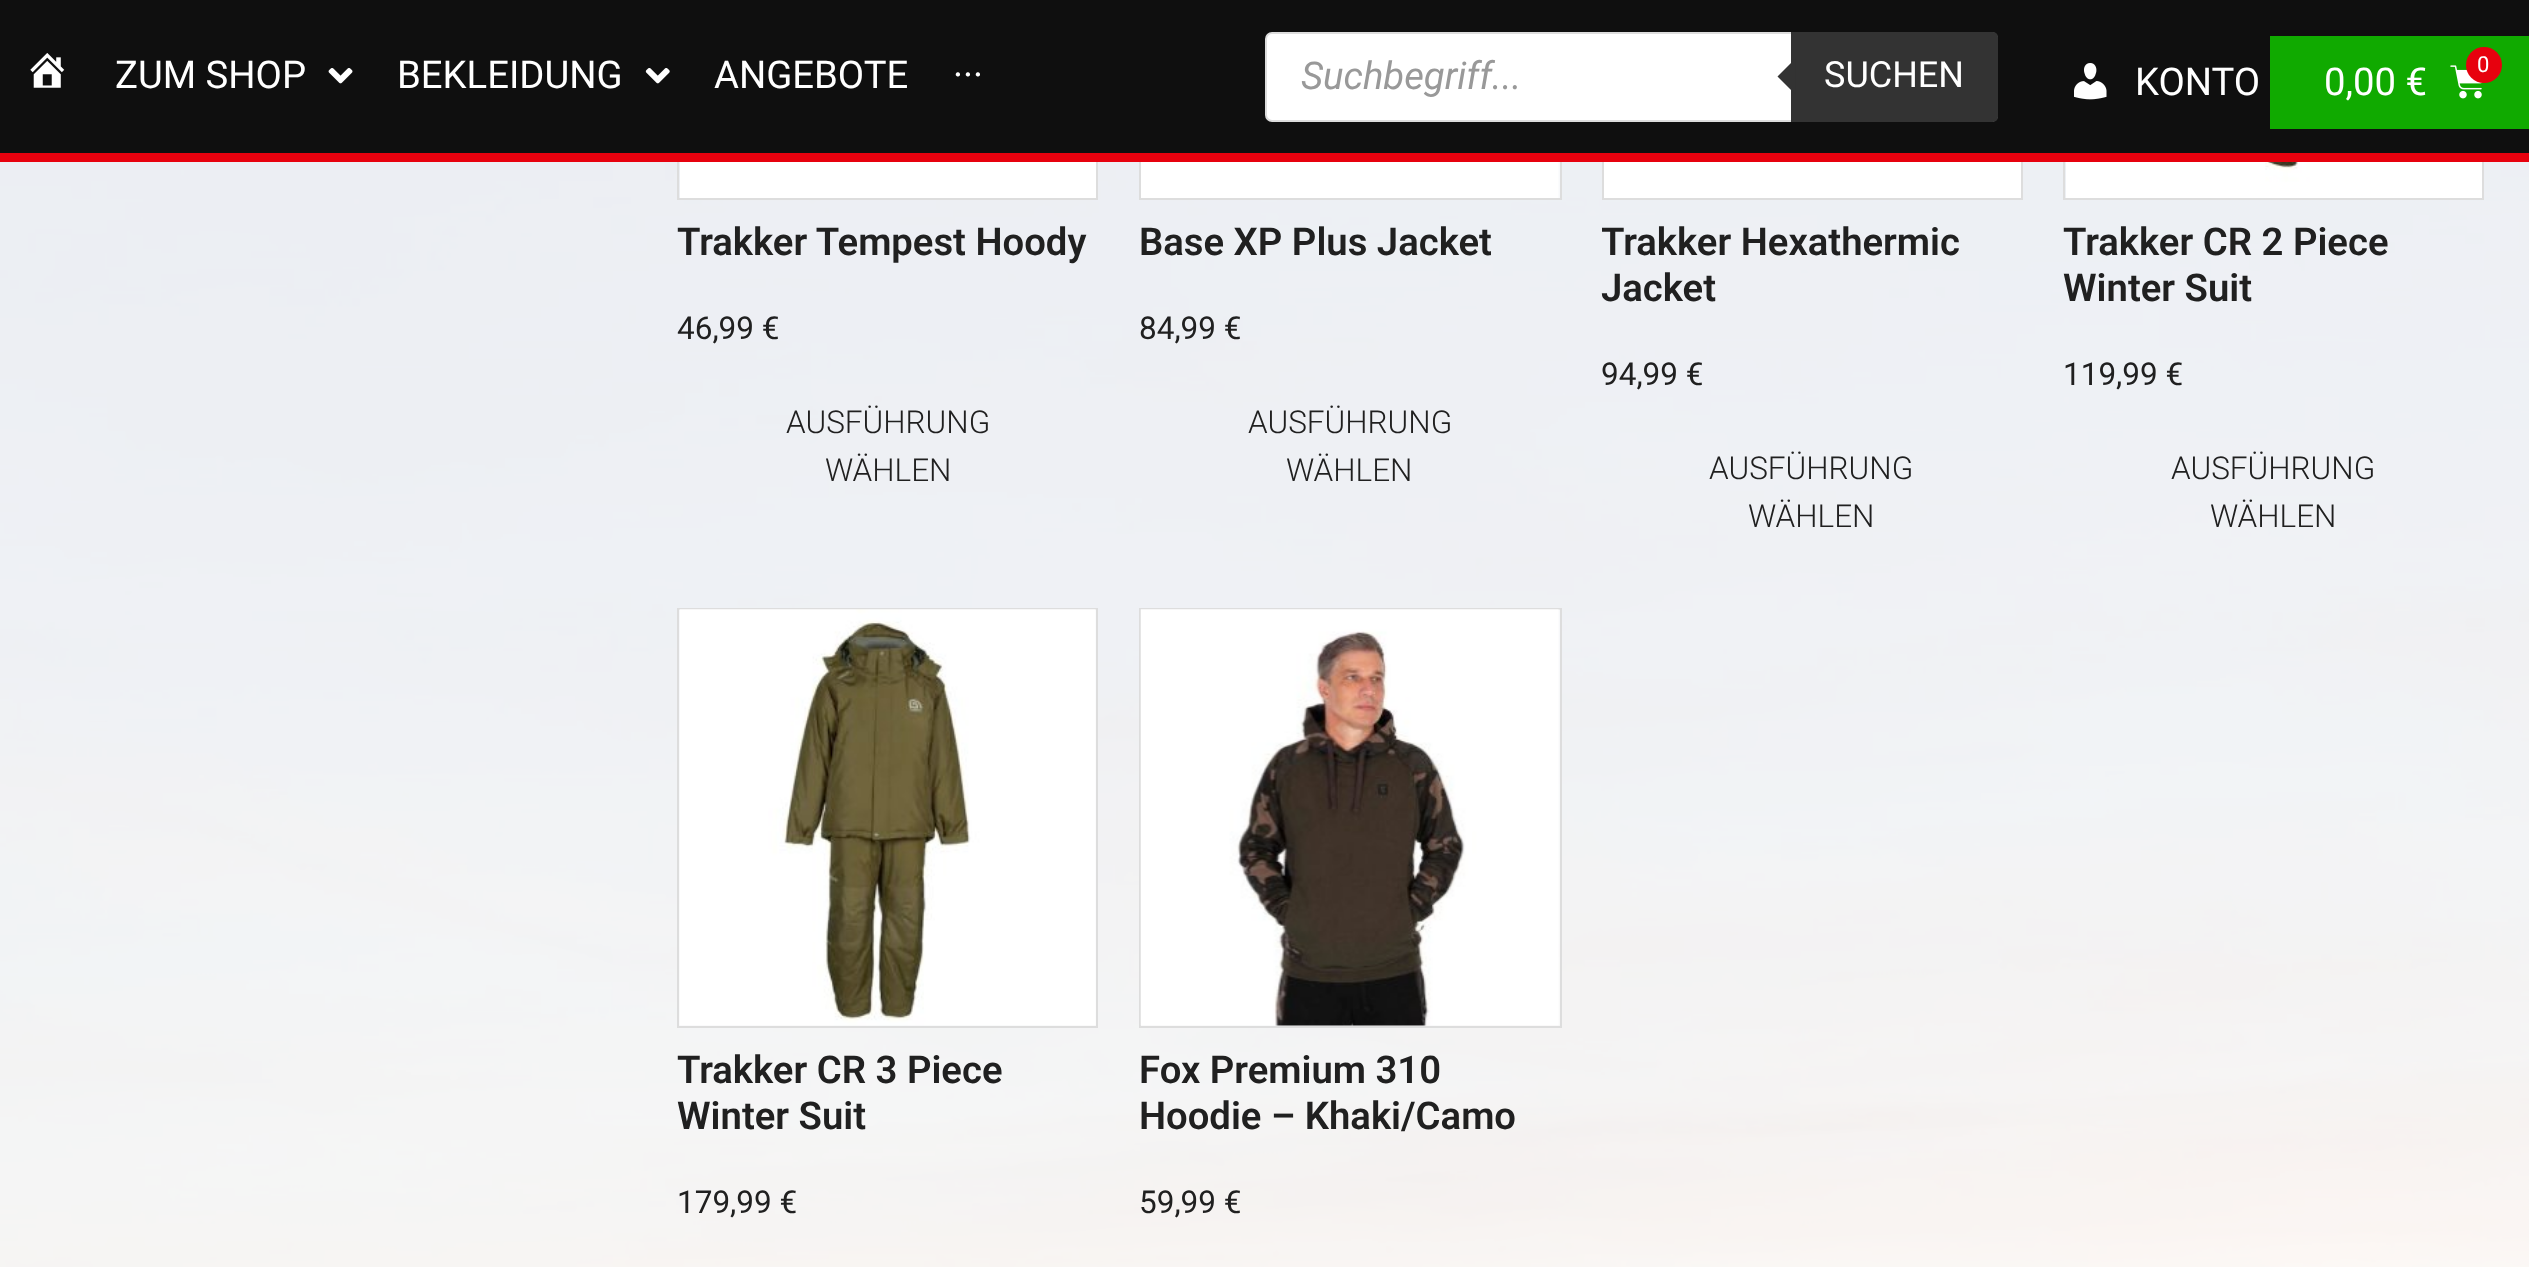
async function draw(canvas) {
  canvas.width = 2529;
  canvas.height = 1267;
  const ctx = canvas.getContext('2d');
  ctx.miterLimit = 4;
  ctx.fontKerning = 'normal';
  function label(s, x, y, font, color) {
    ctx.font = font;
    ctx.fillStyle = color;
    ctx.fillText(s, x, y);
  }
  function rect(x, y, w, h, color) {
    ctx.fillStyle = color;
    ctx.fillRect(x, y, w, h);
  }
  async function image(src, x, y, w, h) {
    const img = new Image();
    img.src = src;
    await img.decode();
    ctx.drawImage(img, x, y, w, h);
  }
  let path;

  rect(0, 0, 2529, 1267, '#fff');
  await image('assets/img1.png', 0, 162, 2529, 1105);
  rect(632, 162, 1897, 1105, '#ffffffe3');
  ctx.strokeStyle = '#ddd';
  ctx.lineWidth = 2;
  ctx.strokeRect(678, -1, 419, 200);
  ctx.strokeRect(1140, -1, 421, 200);
  ctx.strokeRect(1603, -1, 419, 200);
  ctx.strokeRect(2064, -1, 419, 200);
  rect(0, 0, 2529, 153, '#0f0f0f');
  rect(0, 153, 2529, 9, '#e7010e');
  await image('assets/img2.png', 30, 53, 35, 35);
  label('ZUM SHOP', 115, 88, '38.25px Roboto', '#fff');
  await image('assets/img3.png', 328, 68, 25, 16);
  label('BEKLEIDUNG', 397, 88, '38.25px Roboto', '#fff');
  await image('assets/img4.png', 645, 68, 25, 16);
  label('ANGEBOTE', 714, 88, '38.25px Roboto', '#fff');
  label('···', 953, 88, '38.25px Roboto', '#fff');
  ctx.beginPath();
  ctx.roundRect(1266, 33, 731, 88, 6);
  ctx.fill();
  ctx.stroke();
  label('Suchbegriff...', 1301, 89, 'italic 38.25px Roboto', '#999');
  ctx.fillStyle = '#333';
  ctx.beginPath();
  ctx.roundRect(1791, 32, 207, 90, [0, 5, 5, 0]);
  ctx.fill();
  path = new Path2D('M1795.5 58.5V94.5L1777.5 76.5Z');
  ctx.fill(path);
  label('SUCHEN', 1824, 87, '36px Roboto', '#fff');
  await image('assets/img5.png', 2074, 63, 33, 37);
  label('KONTO', 2135, 95, '38.25px Roboto', '#fff');
  rect(2270, 36, 259, 93, '#10aa00');
  await image('assets/img6.png', 2450, 65, 33, 34);
  ctx.fillStyle = '#e7010e';
  ctx.beginPath();
  ctx.arc(2484, 65, 18, 0, 2 * Math.PI);
  ctx.fill();
  label('0', 2477, 72, '22px Roboto', '#fff');
  label('0,00 €', 2324, 95, '38.25px Roboto', '#fff');
  rect(0, 162, 632, 1105, '#ffffffe3');
  await image('assets/img7.png', 680, 162, 416, 36);
  label('Trakker Tempest Hoody', 677, 255, '600 38.25px Roboto', '#202020');
  label('46,99 €', 677, 339, '31.5px Roboto', '#202020');
  label('AUSFÜHRUNG', 786, 433, '300 31.5px Roboto', '#202020');
  label('WÄHLEN', 825, 481, '300 31.5px Roboto', '#202020');
  await image('assets/img8.png', 1141, 162, 419, 36);
  label('Base XP Plus Jacket', 1139, 255, '600 38.25px Roboto', '#202020');
  label('84,99 €', 1139, 339, '31.5px Roboto', '#202020');
  label('AUSFÜHRUNG', 1248, 433, '300 31.5px Roboto', '#202020');
  label('WÄHLEN', 1286, 481, '300 31.5px Roboto', '#202020');
  await image('assets/img9.png', 1604, 162, 417, 36);
  ctx.save();
  ctx.beginPath();
  ctx.rect(1602, 0, 421, 585);
  ctx.clip();
  label('Trakker Hexathermic', 1601, 255, '600 38.25px Roboto', '#202020');
  ctx.restore();
  label('Jacket', 1601, 301, '600 38.25px Roboto', '#202020');
  label('94,99 €', 1601, 385, '31.5px Roboto', '#202020');
  label('AUSFÜHRUNG', 1709, 479, '300 31.5px Roboto', '#202020');
  label('WÄHLEN', 1748, 527, '300 31.5px Roboto', '#202020');
  await image('assets/img10.png', 2066, 162, 416, 36);
  label('Trakker CR 2 Piece', 2063, 255, '600 38.25px Roboto', '#202020');
  label('Winter Suit', 2063, 301, '600 38.25px Roboto', '#202020');
  label('119,99 €', 2063, 385, '31.5px Roboto', '#202020');
  label('AUSFÜHRUNG', 2171, 479, '300 31.5px Roboto', '#202020');
  label('WÄHLEN', 2210, 527, '300 31.5px Roboto', '#202020');
  ctx.strokeRect(678, 609, 419, 418);
  await image('assets/img11.png', 679, 609, 417, 417);
  label('Trakker CR 3 Piece', 677, 1083, '600 38.25px Roboto', '#202020');
  label('Winter Suit', 677, 1129, '600 38.25px Roboto', '#202020');
  label('179,99 €', 677, 1213, '31.5px Roboto', '#202020');
  ctx.strokeRect(1140, 609, 421, 418);
  await image('assets/img12.png', 1140, 609, 420, 417);
  label('Fox Premium 310', 1139, 1083, '600 38.25px Roboto', '#202020');
  label('Hoodie – Khaki/Camo', 1139, 1129, '600 38.25px Roboto', '#202020');
  label('59,99 €', 1139, 1213, '31.5px Roboto', '#202020');
}

draw(document.querySelector('canvas'));
